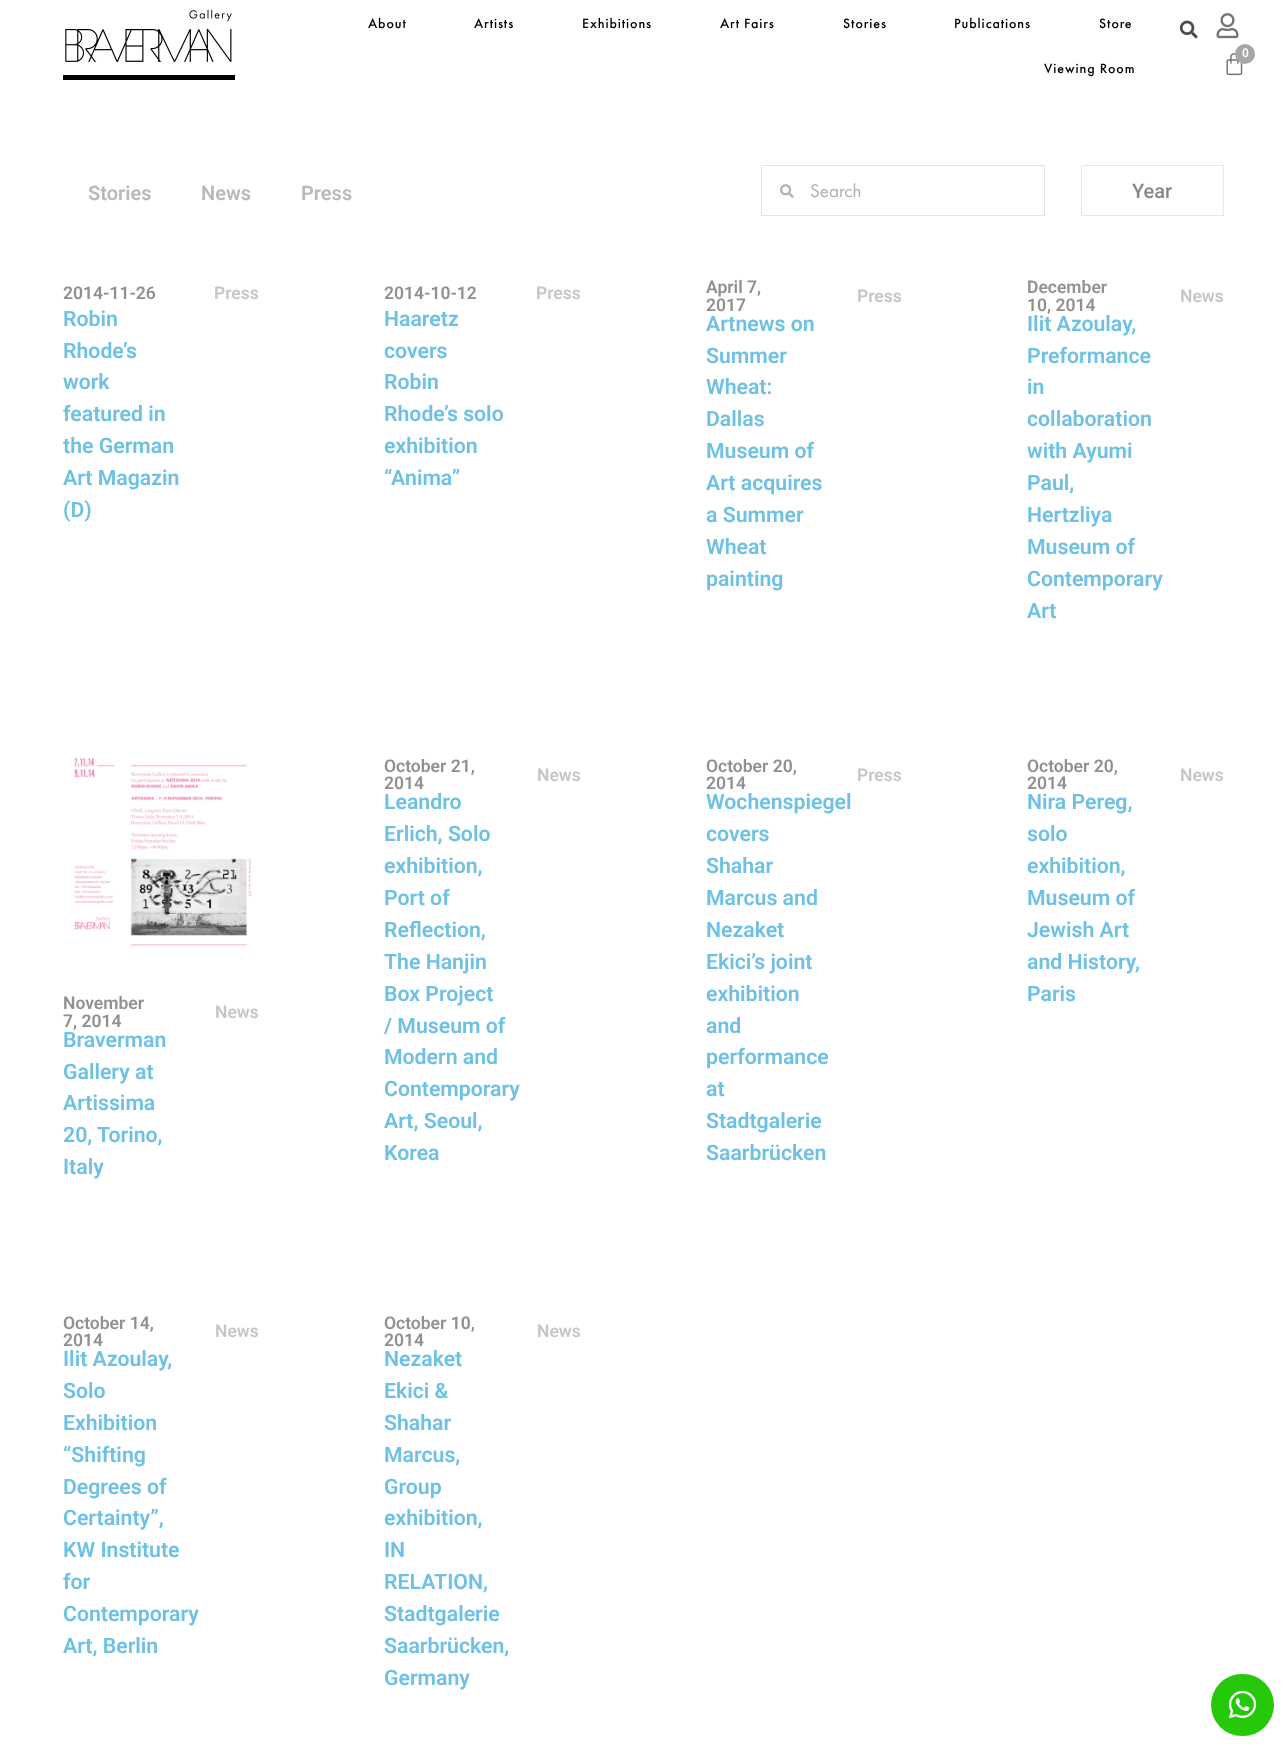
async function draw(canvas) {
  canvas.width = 1286;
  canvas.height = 1762;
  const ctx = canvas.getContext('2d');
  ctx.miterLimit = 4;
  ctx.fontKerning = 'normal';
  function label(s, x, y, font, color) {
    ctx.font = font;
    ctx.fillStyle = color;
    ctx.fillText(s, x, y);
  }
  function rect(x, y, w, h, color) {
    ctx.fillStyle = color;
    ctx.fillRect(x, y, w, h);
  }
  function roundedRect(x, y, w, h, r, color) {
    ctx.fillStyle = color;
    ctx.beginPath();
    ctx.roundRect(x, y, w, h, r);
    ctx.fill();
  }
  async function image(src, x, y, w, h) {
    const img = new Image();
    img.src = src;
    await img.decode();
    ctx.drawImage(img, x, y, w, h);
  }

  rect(0, 0, 1286, 1762, '#fff');
  await image('assets/img1.png', 63, 9, 172, 71);
  ctx.letterSpacing = '0.9px';
  label('About', 368, 28, '500 14px Futura PT', '#000');
  label('Artists', 474, 28, '500 14px Futura PT', '#000');
  label('Exhibitions', 582, 28, '500 14px Futura PT', '#000');
  label('Art Fairs', 720, 28, '500 14px Futura PT', '#000');
  label('Stories', 843, 28, '500 14px Futura PT', '#000');
  label('Publications', 954, 28, '500 14px Futura PT', '#000');
  label('Store', 1099, 28, '500 14px Futura PT', '#000');
  label('Viewing Room', 1044, 73, '500 14px Futura PT', '#000');
  await image('assets/img2.png', 1179, 20, 19, 19);
  await image('assets/img3.png', 1216, 13, 23, 26);
  await image('assets/img4.png', 1226, 53, 17, 23);
  ctx.fillStyle = '#a7a7a7';
  ctx.beginPath();
  ctx.arc(1245, 54, 10, 0, 2 * Math.PI);
  ctx.fill();
  ctx.letterSpacing = '0px';
  label('0', 1242, 57, '600 12px Roboto', '#fff');
  label('Stories', 88, 200, '600 20px Roboto', '#b8b8b8');
  label('News', 201, 200, '600 20px Roboto', '#b8b8b8');
  label('Press', 301, 200, '600 20px Roboto', '#b8b8b8');
  ctx.strokeStyle = '#e3e3e3';
  ctx.strokeRect(761.5, 165.5, 283, 50);
  await image('assets/img5.png', 780, 184, 14, 14);
  label('Search', 810, 197, '19px Futura PT', '#afafaf');
  ctx.strokeStyle = '#e8e8e8';
  ctx.strokeRect(1081.5, 165.5, 142, 50);
  label('Year', 1132, 198, '500 20px Roboto', '#878787');
  label('2014-11-26', 63, 299, '600 17.5px Roboto', '#909090');
  label('Press', 214, 299, '600 17.5px Roboto', '#c6c6c6');
  label('Robin', 63, 326, '600 21.25px Roboto', '#6ec1e4');
  label('Rhode’s', 63, 358, '600 21.25px Roboto', '#6ec1e4');
  label('work', 63, 389, '600 21.25px Roboto', '#6ec1e4');
  label('featured in', 63, 421, '600 21.25px Roboto', '#6ec1e4');
  label('the German', 63, 453, '600 21.25px Roboto', '#6ec1e4');
  label('Art Magazin', 63, 485, '600 21.25px Roboto', '#6ec1e4');
  label('(D)', 63, 517, '600 21.25px Roboto', '#6ec1e4');
  label('2014-10-12', 384, 299, '600 17.5px Roboto', '#909090');
  label('Press', 536, 299, '600 17.5px Roboto', '#c6c6c6');
  label('Haaretz', 384, 326, '600 21.25px Roboto', '#6ec1e4');
  label('covers', 384, 358, '600 21.25px Roboto', '#6ec1e4');
  label('Robin', 384, 389, '600 21.25px Roboto', '#6ec1e4');
  label('Rhode’s solo', 384, 421, '600 21.25px Roboto', '#6ec1e4');
  label('exhibition', 384, 453, '600 21.25px Roboto', '#6ec1e4');
  label('“Anima”', 384, 485, '600 21.25px Roboto', '#6ec1e4');
  label('April 7,', 706, 293, '600 17.5px Roboto', '#909090');
  label('2017', 706, 311, '600 17.5px Roboto', '#909090');
  label('Press', 857, 302, '600 17.5px Roboto', '#c6c6c6');
  label('Artnews on', 706, 331, '600 21.25px Roboto', '#6ec1e4');
  label('Summer', 706, 363, '600 21.25px Roboto', '#6ec1e4');
  label('Wheat:', 706, 394, '600 21.25px Roboto', '#6ec1e4');
  label('Dallas', 706, 426, '600 21.25px Roboto', '#6ec1e4');
  label('Museum of', 706, 458, '600 21.25px Roboto', '#6ec1e4');
  label('Art acquires', 706, 490, '600 21.25px Roboto', '#6ec1e4');
  label('a Summer', 706, 522, '600 21.25px Roboto', '#6ec1e4');
  label('Wheat', 706, 554, '600 21.25px Roboto', '#6ec1e4');
  label('painting', 706, 586, '600 21.25px Roboto', '#6ec1e4');
  label('December', 1027, 293, '600 17.5px Roboto', '#909090');
  label('10, 2014', 1027, 311, '600 17.5px Roboto', '#909090');
  label('News', 1180, 302, '600 17.5px Roboto', '#c6c6c6');
  label('Ilit Azoulay,', 1027, 331, '600 21.25px Roboto', '#6ec1e4');
  label('Preformance', 1027, 363, '600 21.25px Roboto', '#6ec1e4');
  label('in', 1027, 394, '600 21.25px Roboto', '#6ec1e4');
  label('collaboration', 1027, 426, '600 21.25px Roboto', '#6ec1e4');
  label('with Ayumi', 1027, 458, '600 21.25px Roboto', '#6ec1e4');
  label('Paul,', 1027, 490, '600 21.25px Roboto', '#6ec1e4');
  label('Hertzliya', 1027, 522, '600 21.25px Roboto', '#6ec1e4');
  label('Museum of', 1027, 554, '600 21.25px Roboto', '#6ec1e4');
  label('Contemporary', 1027, 586, '600 21.25px Roboto', '#6ec1e4');
  label('Art', 1027, 618, '600 21.25px Roboto', '#6ec1e4');
  label('October 21,', 384, 772, '600 17.5px Roboto', '#909090');
  label('2014', 384, 789, '600 17.5px Roboto', '#909090');
  label('News', 537, 781, '600 17.5px Roboto', '#c6c6c6');
  label('Leandro', 384, 809, '600 21.25px Roboto', '#6ec1e4');
  label('Erlich, Solo', 384, 841, '600 21.25px Roboto', '#6ec1e4');
  label('exhibition,', 384, 873, '600 21.25px Roboto', '#6ec1e4');
  label('Port of', 384, 905, '600 21.25px Roboto', '#6ec1e4');
  label('Reflection,', 384, 937, '600 21.25px Roboto', '#6ec1e4');
  label('The Hanjin', 384, 969, '600 21.25px Roboto', '#6ec1e4');
  label('Box Project', 384, 1001, '600 21.25px Roboto', '#6ec1e4');
  label('/ Museum of', 384, 1033, '600 21.25px Roboto', '#6ec1e4');
  label('Modern and', 384, 1064, '600 21.25px Roboto', '#6ec1e4');
  label('Contemporary', 384, 1096, '600 21.25px Roboto', '#6ec1e4');
  label('Art, Seoul,', 384, 1128, '600 21.25px Roboto', '#6ec1e4');
  label('Korea', 384, 1160, '600 21.25px Roboto', '#6ec1e4');
  label('October 20,', 706, 772, '600 17.5px Roboto', '#909090');
  label('2014', 706, 789, '600 17.5px Roboto', '#909090');
  label('Press', 857, 781, '600 17.5px Roboto', '#c6c6c6');
  label('Wochenspiegel', 706, 809, '600 21.25px Roboto', '#6ec1e4');
  label('covers', 706, 841, '600 21.25px Roboto', '#6ec1e4');
  label('Shahar', 706, 873, '600 21.25px Roboto', '#6ec1e4');
  label('Marcus and', 706, 905, '600 21.25px Roboto', '#6ec1e4');
  label('Nezaket', 706, 937, '600 21.25px Roboto', '#6ec1e4');
  label('Ekici’s joint', 706, 969, '600 21.25px Roboto', '#6ec1e4');
  label('exhibition', 706, 1001, '600 21.25px Roboto', '#6ec1e4');
  label('and', 706, 1033, '600 21.25px Roboto', '#6ec1e4');
  label('performance', 706, 1064, '600 21.25px Roboto', '#6ec1e4');
  label('at', 706, 1096, '600 21.25px Roboto', '#6ec1e4');
  label('Stadtgalerie', 706, 1128, '600 21.25px Roboto', '#6ec1e4');
  label('Saarbrücken', 706, 1160, '600 21.25px Roboto', '#6ec1e4');
  label('October 20,', 1027, 772, '600 17.5px Roboto', '#909090');
  label('2014', 1027, 789, '600 17.5px Roboto', '#909090');
  label('News', 1180, 781, '600 17.5px Roboto', '#c6c6c6');
  label('Nira Pereg,', 1027, 809, '600 21.25px Roboto', '#6ec1e4');
  label('solo', 1027, 841, '600 21.25px Roboto', '#6ec1e4');
  label('exhibition,', 1027, 873, '600 21.25px Roboto', '#6ec1e4');
  label('Museum of', 1027, 905, '600 21.25px Roboto', '#6ec1e4');
  label('Jewish Art', 1027, 937, '600 21.25px Roboto', '#6ec1e4');
  label('and History,', 1027, 969, '600 21.25px Roboto', '#6ec1e4');
  label('Paris', 1027, 1001, '600 21.25px Roboto', '#6ec1e4');
  await image('assets/img6.png', 74, 758, 178, 188);
  label('November', 63, 1009, '600 17.5px Roboto', '#909090');
  label('7, 2014', 63, 1027, '600 17.5px Roboto', '#909090');
  label('News', 215, 1018, '600 17.5px Roboto', '#c6c6c6');
  label('Braverman', 63, 1047, '600 21.25px Roboto', '#6ec1e4');
  label('Gallery at', 63, 1079, '600 21.25px Roboto', '#6ec1e4');
  label('Artissima', 63, 1110, '600 21.25px Roboto', '#6ec1e4');
  label('20, Torino,', 63, 1142, '600 21.25px Roboto', '#6ec1e4');
  label('Italy', 63, 1174, '600 21.25px Roboto', '#6ec1e4');
  label('October 14,', 63, 1329, '600 17.5px Roboto', '#909090');
  label('2014', 63, 1346, '600 17.5px Roboto', '#909090');
  label('News', 215, 1337, '600 17.5px Roboto', '#c6c6c6');
  label('Ilit Azoulay,', 63, 1366, '600 21.25px Roboto', '#6ec1e4');
  label('Solo', 63, 1398, '600 21.25px Roboto', '#6ec1e4');
  label('Exhibition', 63, 1430, '600 21.25px Roboto', '#6ec1e4');
  label('“Shifting', 63, 1462, '600 21.25px Roboto', '#6ec1e4');
  label('Degrees of', 63, 1494, '600 21.25px Roboto', '#6ec1e4');
  label('Certainty”,', 63, 1525, '600 21.25px Roboto', '#6ec1e4');
  label('KW Institute', 63, 1557, '600 21.25px Roboto', '#6ec1e4');
  label('for', 63, 1589, '600 21.25px Roboto', '#6ec1e4');
  label('Contemporary', 63, 1621, '600 21.25px Roboto', '#6ec1e4');
  label('Art, Berlin', 63, 1653, '600 21.25px Roboto', '#6ec1e4');
  label('October 10,', 384, 1329, '600 17.5px Roboto', '#909090');
  label('2014', 384, 1346, '600 17.5px Roboto', '#909090');
  label('News', 537, 1337, '600 17.5px Roboto', '#c6c6c6');
  label('Nezaket', 384, 1366, '600 21.25px Roboto', '#6ec1e4');
  label('Ekici &', 384, 1398, '600 21.25px Roboto', '#6ec1e4');
  label('Shahar', 384, 1430, '600 21.25px Roboto', '#6ec1e4');
  label('Marcus,', 384, 1462, '600 21.25px Roboto', '#6ec1e4');
  label('Group', 384, 1494, '600 21.25px Roboto', '#6ec1e4');
  label('exhibition,', 384, 1525, '600 21.25px Roboto', '#6ec1e4');
  label('IN', 384, 1557, '600 21.25px Roboto', '#6ec1e4');
  label('RELATION,', 384, 1589, '600 21.25px Roboto', '#6ec1e4');
  label('Stadtgalerie', 384, 1621, '600 21.25px Roboto', '#6ec1e4');
  label('Saarbrücken,', 384, 1653, '600 21.25px Roboto', '#6ec1e4');
  label('Germany', 384, 1685, '600 21.25px Roboto', '#6ec1e4');
  roundedRect(1211, 1674, 63, 62, 31, '#25c909');
  await image('assets/img7.png', 1228, 1690, 29, 29);
}

draw(document.querySelector('canvas'));
